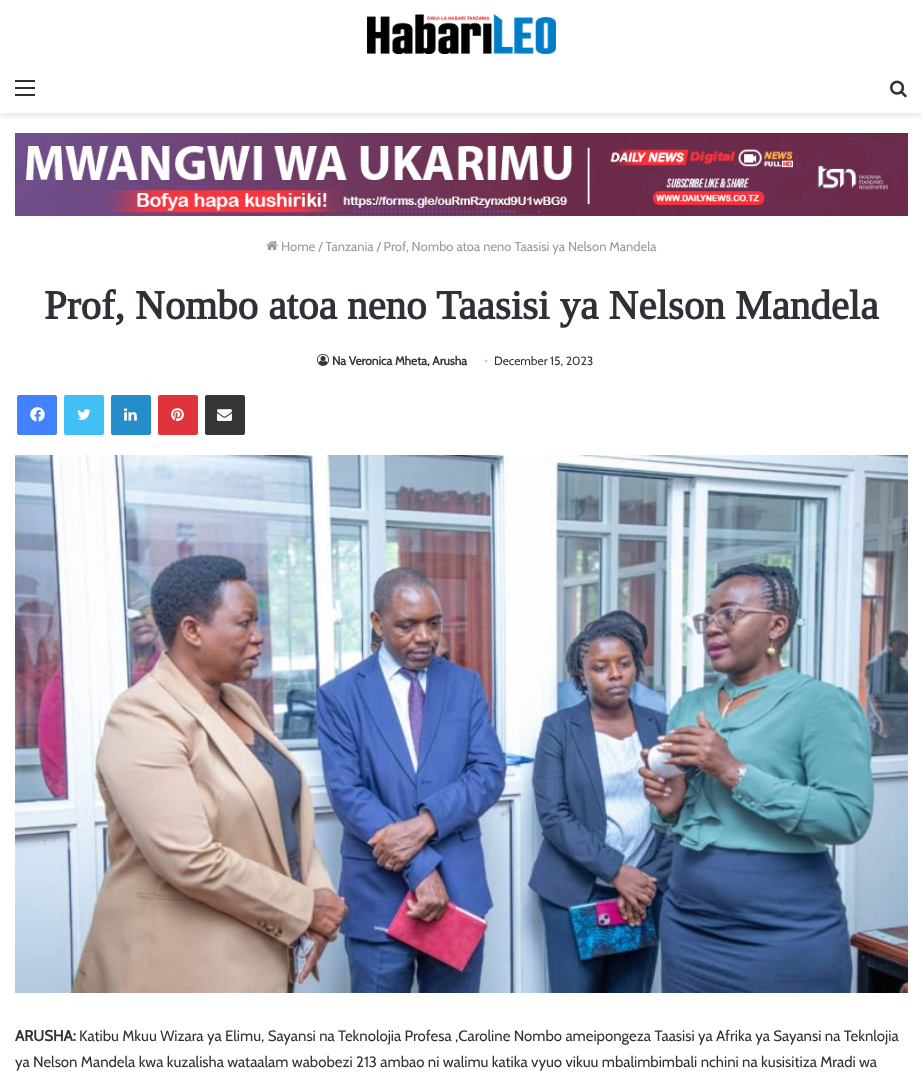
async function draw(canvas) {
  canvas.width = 923;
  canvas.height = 1081;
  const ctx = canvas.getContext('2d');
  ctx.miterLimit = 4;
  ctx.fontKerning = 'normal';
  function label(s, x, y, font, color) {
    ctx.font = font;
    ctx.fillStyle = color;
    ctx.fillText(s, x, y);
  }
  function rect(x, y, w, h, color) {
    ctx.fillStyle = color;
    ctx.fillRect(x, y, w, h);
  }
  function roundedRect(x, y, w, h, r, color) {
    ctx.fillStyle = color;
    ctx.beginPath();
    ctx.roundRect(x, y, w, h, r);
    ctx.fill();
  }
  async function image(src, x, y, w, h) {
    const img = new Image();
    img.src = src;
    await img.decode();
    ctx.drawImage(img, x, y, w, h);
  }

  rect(0, 0, 923, 1081, '#fff');
  ctx.save();
  ctx.beginPath();
  ctx.rect(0, 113, 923, 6);
  ctx.clip();
  ctx.fillStyle = '#0000001a';
  ctx.filter = 'blur(3.5px)';
  ctx.beginPath();
  ctx.rect(0, 3, 923, 113);
  ctx.fill();
  ctx.filter = 'none';
  ctx.restore();
  await image('assets/img1.png', 367, 14, 189, 40);
  rect(15, 87, 20, 2, '#2c2f34');
  rect(15, 80, 20, 2, '#2c2f34');
  rect(15, 94, 20, 2, '#2c2f34');
  await image('assets/img2.png', 890, 80, 17, 18);
  await image('assets/img3.png', 15, 133, 893, 83);
  await image('assets/img4.png', 266, 240, 12, 11);
  label('Home / Tanzania / Prof, Nombo atoa neno Taasisi ya Nelson Mandela', 281, 251, '13px Cabin', '#9a9a9a');
  label('Prof, Nombo atoa neno Taasisi ya Nelson Mandela', 44, 319, 'bold 41px Tinos', '#2e3136');
  await image('assets/img5.png', 317, 353, 12, 13);
  label('Na Veronica Mheta, Arusha', 332, 365, 'bold 12px Cabin', '#353535');
  label('•', 484, 365, '12px Liberation Serif', '#cdcdcd');
  label('December 15, 2023', 494, 365, '12px Cabin', '#353535');
  roundedRect(17, 395, 40, 40, 2, '#4281ff');
  await image('assets/img6.png', 30, 407, 15, 15);
  roundedRect(64, 395, 40, 40, 2, '#42c0f5');
  await image('assets/img7.png', 77, 409, 14, 11);
  roundedRect(111, 395, 40, 40, 2, '#258dc9');
  await image('assets/img8.png', 124, 408, 13, 13);
  roundedRect(158, 395, 40, 40, 2, '#e1333a');
  await image('assets/img9.png', 171, 408, 13, 13);
  roundedRect(205, 395, 40, 40, 2, '#353535');
  await image('assets/img10.png', 217, 409, 15, 12);
  await image('assets/img11.png', 15, 455, 893, 538);
  label('ARUSHA:', 15, 1041, 'bold 15px Cabin', '#2e3136');
  label('Katibu Mkuu Wizara ya Elimu, Sayansi na Teknolojia Profesa ,Caroline Nombo ameipongeza Taasisi ya Afrika ya Sayansi na Teknlojia', 79, 1041, '15px Cabin', '#2e3136');
  label('ya Nelson Mandela kwa kuzalisha wataalam wabobezi 213 ambao ni walimu katika vyuo vikuu mbalimbimbali nchini na kusisitiza Mradi wa', 15, 1067, '15px Cabin', '#2e3136');
}

draw(document.querySelector('canvas'));
